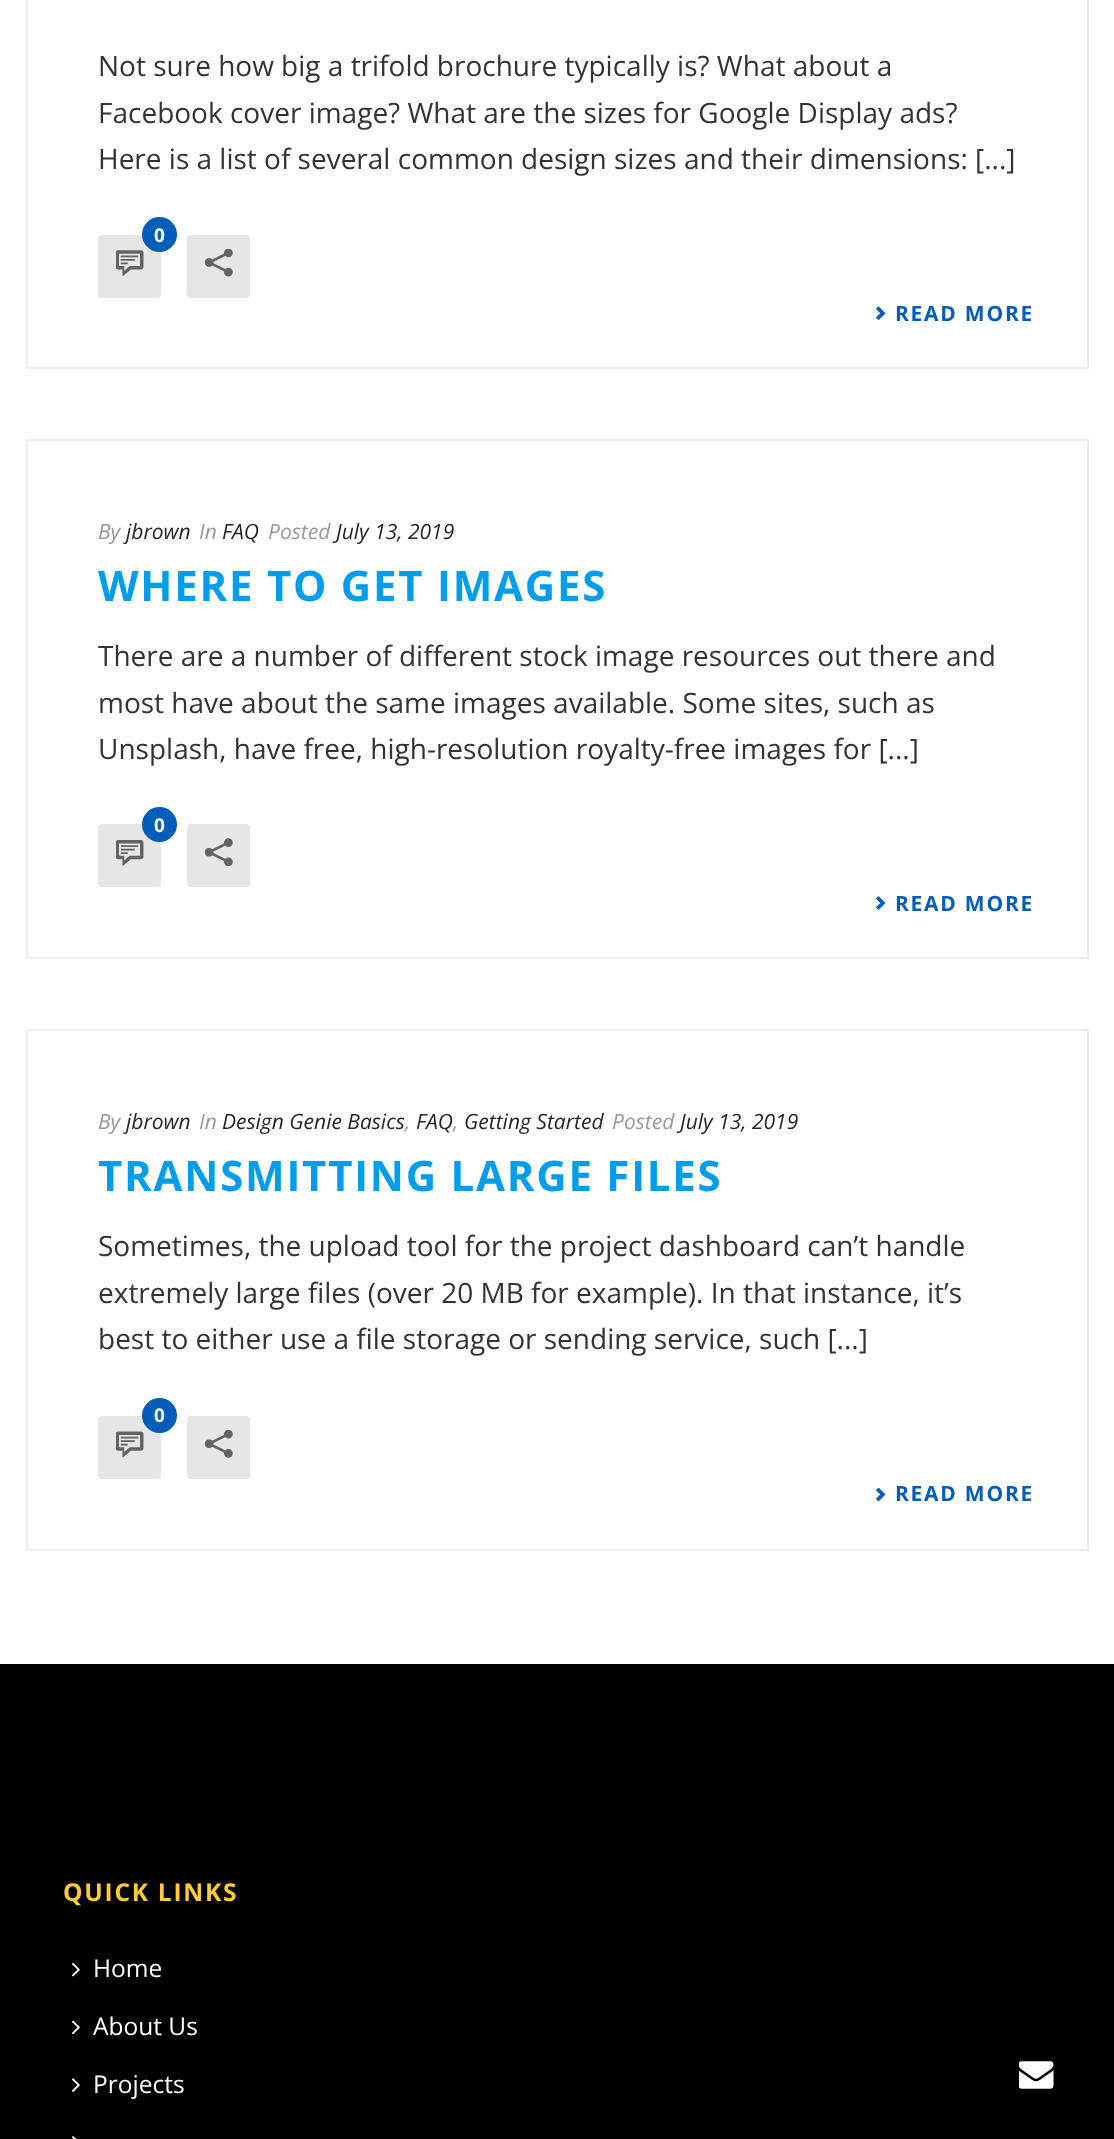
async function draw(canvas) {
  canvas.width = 1114;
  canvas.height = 2139;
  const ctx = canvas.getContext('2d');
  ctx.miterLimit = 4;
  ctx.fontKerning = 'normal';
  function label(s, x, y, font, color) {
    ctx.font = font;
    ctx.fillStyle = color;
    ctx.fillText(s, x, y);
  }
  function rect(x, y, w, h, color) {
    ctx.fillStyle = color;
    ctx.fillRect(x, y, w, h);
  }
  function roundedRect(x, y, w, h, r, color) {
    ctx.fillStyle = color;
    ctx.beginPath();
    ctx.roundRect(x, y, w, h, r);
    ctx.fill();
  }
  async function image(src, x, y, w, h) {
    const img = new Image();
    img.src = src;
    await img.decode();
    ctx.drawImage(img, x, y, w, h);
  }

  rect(0, 0, 1114, 2139, '#fff');
  ctx.strokeStyle = '#eee';
  ctx.lineWidth = 2;
  ctx.strokeRect(27, -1, 1061, 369);
  label('Not sure how big a trifold brochure typically is? What about a', 98, 76, '28px Open Sans', '#333');
  label('Facebook cover image? What are the sizes for Google Display ads?', 98, 123, '28px Open Sans', '#333');
  label('Here is a list of several common design sizes and their dimensions: [...]', 98, 169, '28px Open Sans', '#333');
  roundedRect(98, 235, 63, 63, 4, '#e6e6e6');
  await image('assets/img1.png', 116, 250, 28, 27);
  ctx.fillStyle = '#005db9';
  ctx.beginPath();
  ctx.arc(159.5, 234.5, 17.5, 0, 2 * Math.PI);
  ctx.fill();
  label('0', 154, 242, 'bold 19px Open Sans', '#fff');
  roundedRect(187, 235, 63, 63, 4, '#e6e6e6');
  await image('assets/img2.png', 205, 249, 28, 28);
  await image('assets/img3.png', 876, 306, 10, 14);
  ctx.letterSpacing = '1.75px';
  label('READ MORE', 895, 321, 'bold 21px Open Sans', '#005db9');
  ctx.strokeRect(27, 440, 1061, 518);
  ctx.letterSpacing = '0px';
  label('By', 98, 539, 'italic 21px Open Sans', '#999');
  label('jbrown', 126, 539, 'italic 21px Open Sans', '#252525');
  label('In', 199, 539, 'italic 21px Open Sans', '#999');
  label('FAQ', 222, 539, 'italic 21px Open Sans', '#252525');
  label('Posted', 268, 539, 'italic 21px Open Sans', '#999');
  label('July 13, 2019', 336, 539, 'italic 21px Open Sans', '#252525');
  ctx.letterSpacing = '1.75px';
  label('WHERE TO GET IMAGES', 98, 601, 'bold 42px Open Sans', '#009deb');
  ctx.letterSpacing = '0px';
  label('There are a number of different stock image resources out there and', 98, 666, '28px Open Sans', '#333');
  label('most have about the same images available. Some sites, such as', 98, 713, '28px Open Sans', '#333');
  label('Unsplash, have free, high-resolution royalty-free images for [...]', 98, 759, '28px Open Sans', '#333');
  roundedRect(98, 824, 63, 63, 4, '#e6e6e6');
  await image('assets/img4.png', 116, 840, 28, 26);
  ctx.fillStyle = '#005db9';
  ctx.beginPath();
  ctx.arc(159.5, 824.5, 17.5, 0, 2 * Math.PI);
  ctx.fill();
  label('0', 154, 832, 'bold 19px Open Sans', '#fff');
  roundedRect(187, 824, 63, 63, 4, '#e6e6e6');
  await image('assets/img5.png', 205, 838, 28, 28);
  await image('assets/img6.png', 876, 896, 10, 14);
  ctx.letterSpacing = '1.75px';
  label('READ MORE', 895, 911, 'bold 21px Open Sans', '#005db9');
  ctx.strokeRect(27, 1030, 1061, 520);
  ctx.letterSpacing = '0px';
  label('By', 98, 1129, 'italic 21px Open Sans', '#999');
  label('jbrown', 126, 1129, 'italic 21px Open Sans', '#252525');
  label('In', 199, 1129, 'italic 21px Open Sans', '#999');
  label('Design Genie Basics', 222, 1129, 'italic 21px Open Sans', '#252525');
  label(',', 405, 1129, 'italic 21px Open Sans', '#999');
  label('FAQ', 416, 1129, 'italic 21px Open Sans', '#252525');
  label(',', 453, 1129, 'italic 21px Open Sans', '#999');
  label('Getting Started', 464, 1129, 'italic 21px Open Sans', '#252525');
  label('Posted', 612, 1129, 'italic 21px Open Sans', '#999');
  label('July 13, 2019', 680, 1129, 'italic 21px Open Sans', '#252525');
  ctx.letterSpacing = '1.75px';
  label('TRANSMITTING LARGE FILES', 98, 1191, 'bold 42px Open Sans', '#009deb');
  ctx.letterSpacing = '0px';
  label('Sometimes, the upload tool for the project dashboard can’t handle', 98, 1256, '28px Open Sans', '#333');
  label('extremely large files (over 20 MB for example). In that instance, it’s', 98, 1303, '28px Open Sans', '#333');
  label('best to either use a file storage or sending service, such [...]', 98, 1349, '28px Open Sans', '#333');
  roundedRect(98, 1416, 63, 63, 4, '#e6e6e6');
  await image('assets/img7.png', 116, 1431, 28, 27);
  ctx.fillStyle = '#005db9';
  ctx.beginPath();
  ctx.arc(159.5, 1415.5, 17.5, 0, 2 * Math.PI);
  ctx.fill();
  label('0', 154, 1422, 'bold 19px Open Sans', '#fff');
  roundedRect(187, 1416, 63, 63, 4, '#e6e6e6');
  await image('assets/img8.png', 205, 1430, 28, 28);
  await image('assets/img9.png', 876, 1488, 10, 14);
  ctx.letterSpacing = '1.75px';
  label('READ MORE', 895, 1501, 'bold 21px Open Sans', '#005db9');
  rect(0, 1664, 1114, 475, '#000');
  label('QUICK LINKS', 63, 1901, 'bold 24.5px Open Sans', '#fc3');
  await image('assets/img10.png', 72, 1962, 8, 15);
  ctx.letterSpacing = '0px';
  label('Home', 93, 1977, '24.5px Open Sans', '#fff');
  await image('assets/img11.png', 72, 2020, 8, 15);
  label('About Us', 93, 2035, '24.5px Open Sans', '#fff');
  await image('assets/img12.png', 72, 2078, 8, 14);
  label('Projects', 93, 2093, '24.5px Open Sans', '#fff');
  await image('assets/img13.png', 72, 2136, 4, 3);
  await image('assets/img14.png', 1019, 2061, 35, 28);
}

draw(document.querySelector('canvas'));
